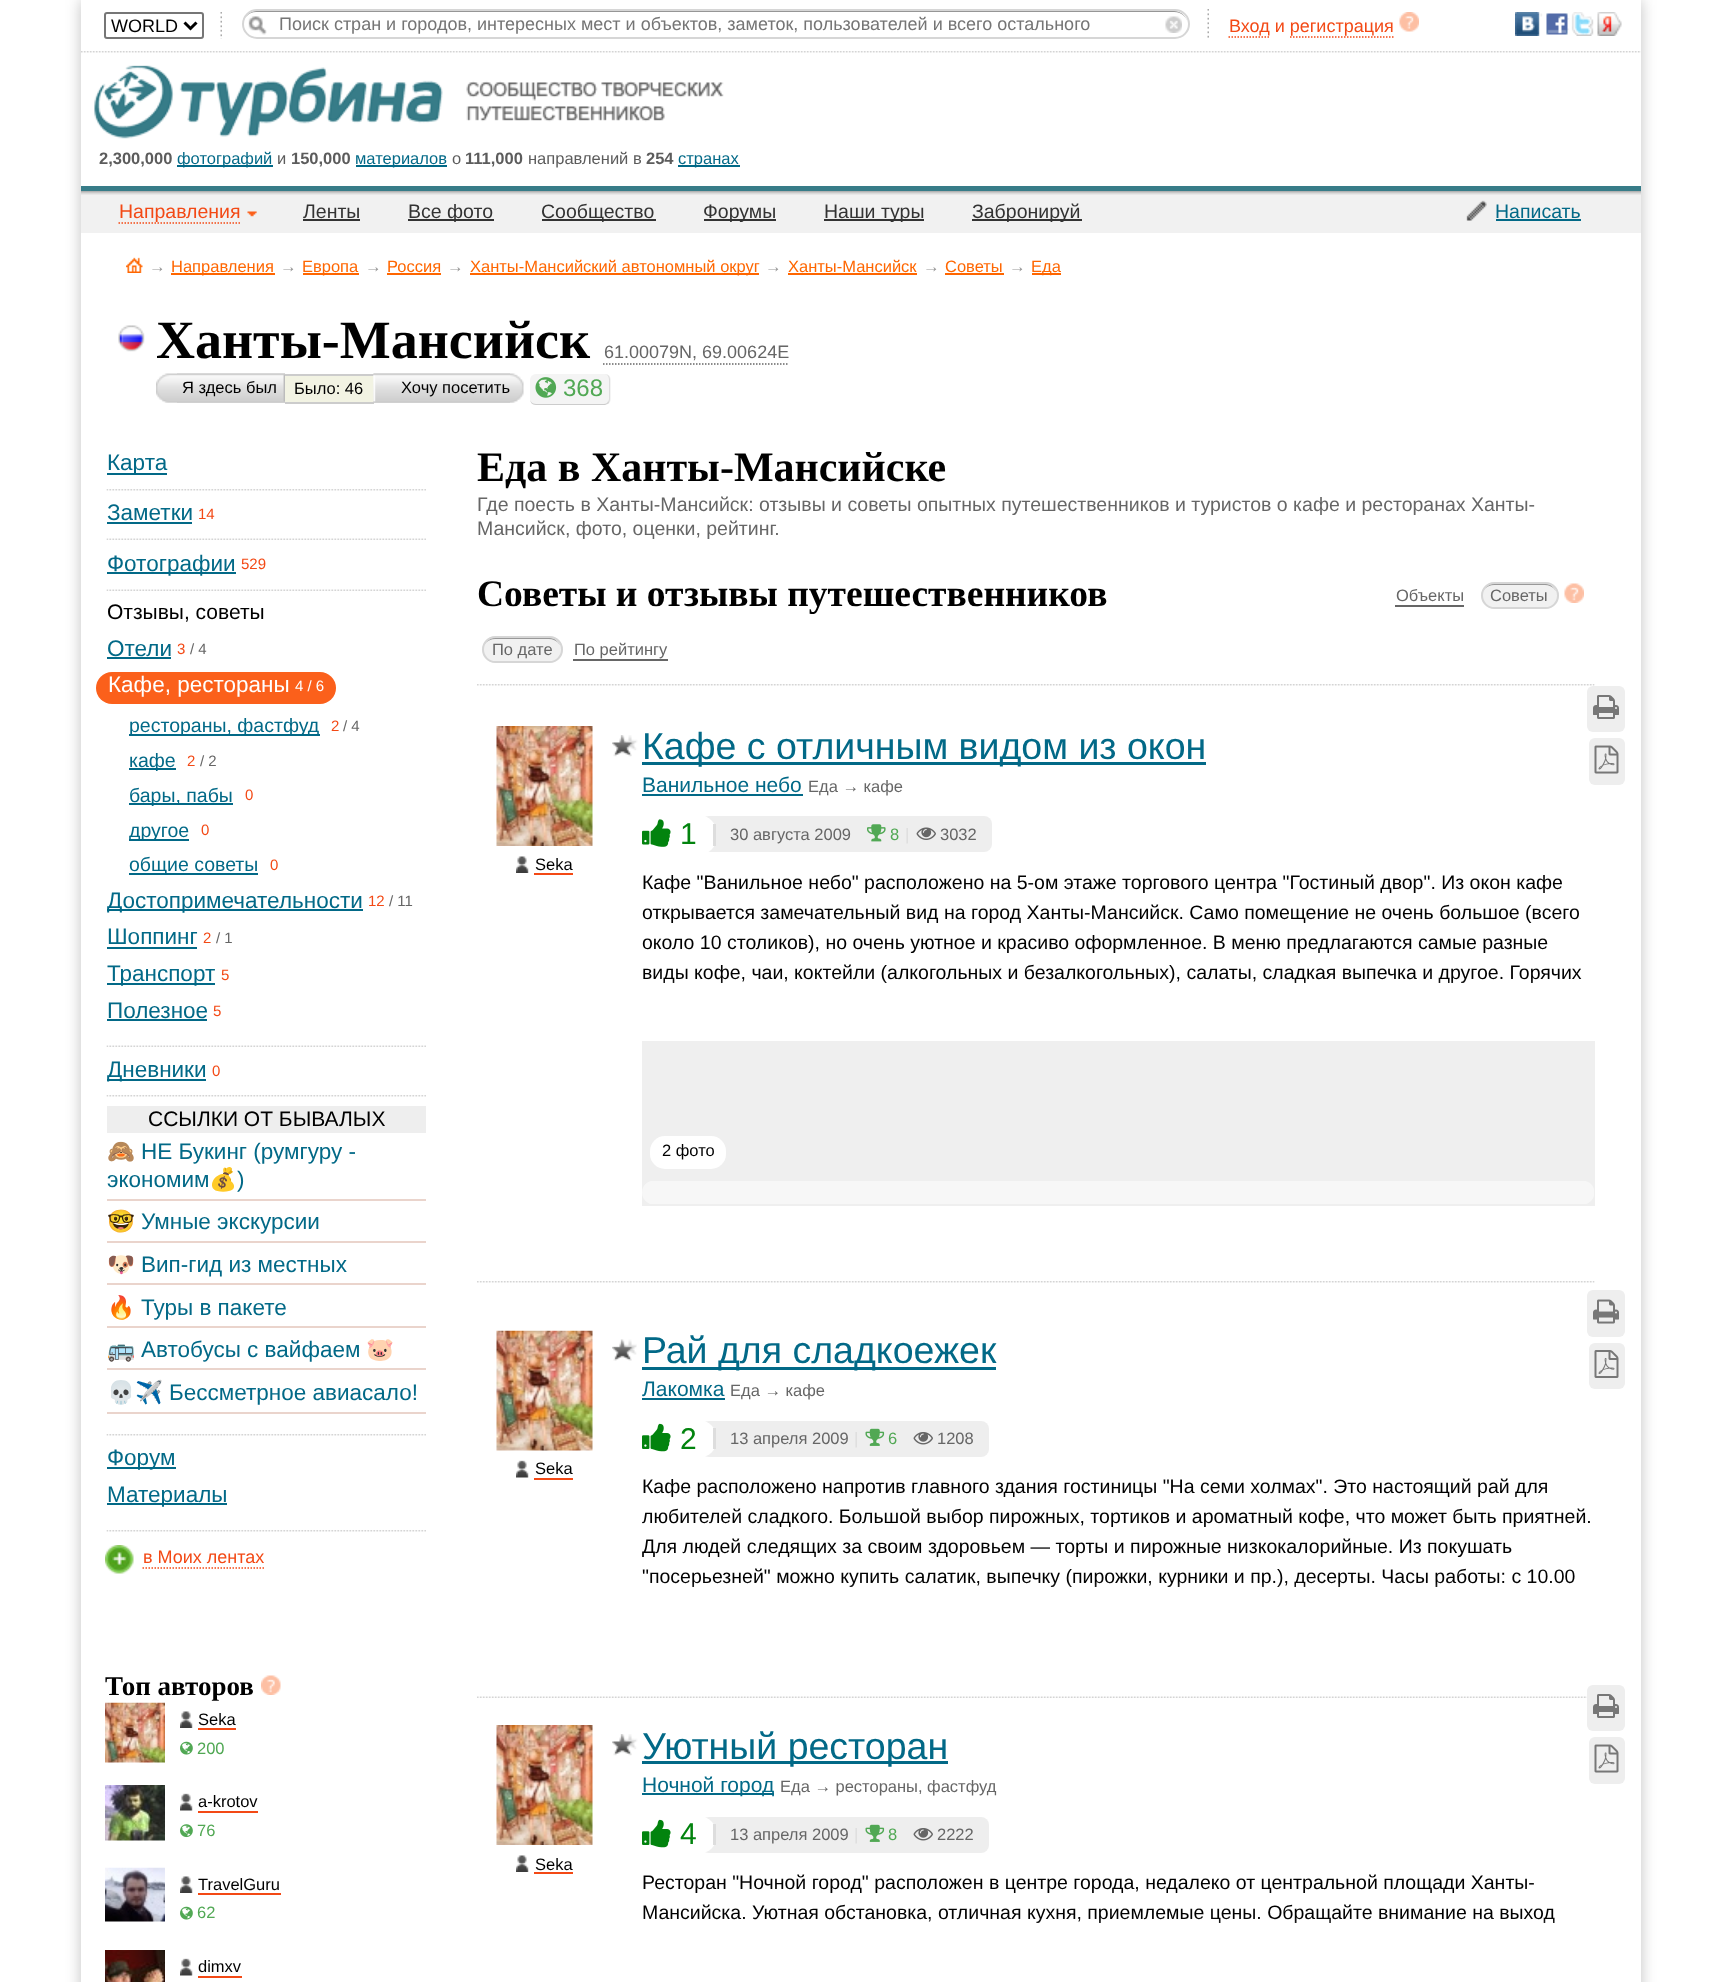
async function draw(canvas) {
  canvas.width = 1722;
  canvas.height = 1982;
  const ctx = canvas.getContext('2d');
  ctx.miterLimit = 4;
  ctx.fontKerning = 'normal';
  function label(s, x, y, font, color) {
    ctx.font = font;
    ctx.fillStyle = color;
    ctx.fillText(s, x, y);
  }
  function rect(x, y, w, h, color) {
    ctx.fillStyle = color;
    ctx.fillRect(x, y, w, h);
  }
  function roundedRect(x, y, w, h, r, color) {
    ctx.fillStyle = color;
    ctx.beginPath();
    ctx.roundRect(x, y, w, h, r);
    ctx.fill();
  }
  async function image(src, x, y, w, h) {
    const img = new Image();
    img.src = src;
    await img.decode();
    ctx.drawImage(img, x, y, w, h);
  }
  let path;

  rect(0, 0, 1722, 1982, '#fff');
  ctx.save();
  path = new Path2D('M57 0H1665V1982H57ZM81 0H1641V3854H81Z');
  ctx.clip(path, 'evenodd');
  ctx.fillStyle = '#0000003d';
  ctx.filter = 'blur(7.5px)';
  ctx.beginPath();
  ctx.rect(81, 0, 1560, 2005);
  ctx.fill();
  ctx.filter = 'none';
  ctx.restore();
  await image('assets/img1.png', 81, 51, 1560, 2);
  ctx.beginPath();
  ctx.roundRect(105, 13, 98, 25, 2);
  ctx.strokeStyle = '#767676';
  ctx.lineWidth = 2;
  ctx.stroke();
  path = new Path2D('M184.5 22.5L190.5 28.5L196.5 22.5');
  ctx.strokeStyle = '#000';
  ctx.lineWidth = 3;
  ctx.stroke(path);
  label('WORLD', 111, 32, '18px Liberation Sans', '#000');
  await image('assets/img2.png', 220, 12, 2, 27);
  await image('assets/img3.png', 1207, 9, 2, 29);
  await image('assets/img4.png', 248, 16, 19, 19);
  ctx.fillStyle = '#969696';
  path = new Path2D('M256 12H1174C1182 12 1188 18 1188 25C1188 18 1182 11 1174 11H256C249 11 243 18 243 25C243 18 249 12 256 12Z');
  ctx.fill(path);
  ctx.beginPath();
  ctx.roundRect(243, 10, 946, 28, 14);
  ctx.strokeStyle = '#d6d6d6';
  ctx.lineWidth = 2;
  ctx.stroke();
  label('Поиск стран и городов, интересных мест и объектов, заметок, пользователей и всего остального', 279, 30, '18px Liberation Sans', '#757575');
  await image('assets/img5.png', 1165, 16, 17, 17);
  label('Вход и регистрация', 1229, 32, '18px Liberation Sans', '#f34915');
  path = new Path2D('M1228.5 37H1269');
  ctx.strokeStyle = '#f34915';
  ctx.lineWidth = 1.5;
  ctx.setLineDash([1.5, 1.5]);
  ctx.stroke(path);
  await image('assets/img6.png', 1399, 12, 20, 20);
  path = new Path2D('M1290 37H1393.5');
  ctx.stroke(path);
  await image('assets/img7.png', 1515, 12, 107, 24);
  await image('assets/img8.png', 94, 65, 630, 74);
  label('2,300,000', 99, 164, 'bold 16.5px Liberation Sans', '#5c5c5c');
  rect(177, 165, 96, 2, '#026987');
  label('фотографий', 177, 164, '16.5px Liberation Sans', '#026987');
  label('и', 277, 164, '16.5px Liberation Sans', '#5c5c5c');
  label('150,000', 291, 164, 'bold 16.5px Liberation Sans', '#5c5c5c');
  rect(356, 165, 91, 2, '#026987');
  label('материалов', 355, 164, '16.5px Liberation Sans', '#026987');
  label('о', 452, 164, '16.5px Liberation Sans', '#5c5c5c');
  label('111,000', 465, 164, 'bold 16.5px Liberation Sans', '#5c5c5c');
  label('направлений в', 528, 164, '16.5px Liberation Sans', '#5c5c5c');
  label('254', 646, 164, 'bold 16.5px Liberation Sans', '#5c5c5c');
  rect(678, 165, 62, 2, '#026987');
  label('странах', 678, 164, '16.5px Liberation Sans', '#026987');
  rect(81, 195, 1560, 38, '#f1f1f1');
  await image('assets/img9.png', 81, 191, 1560, 4);
  rect(81, 186, 1560, 5, '#377c88');
  path = new Path2D('M118.5 223H240');
  ctx.stroke(path);
  label('Направления', 119, 218, '19.5px Liberation Sans', '#f34915');
  await image('assets/img10.png', 247, 211, 10, 6);
  label('Ленты', 303, 218, '19.5px Liberation Sans', '#333');
  rect(303, 219, 57, 2, '#333');
  rect(408, 219, 86, 2, '#333');
  label('Все фото', 408, 218, '19.5px Liberation Sans', '#333');
  rect(542, 219, 114, 2, '#333');
  label('Сообщество', 541, 218, '19.5px Liberation Sans', '#333');
  rect(704, 219, 72, 2, '#333');
  label('Форумы', 703, 218, '19.5px Liberation Sans', '#333');
  rect(824, 219, 100, 2, '#333');
  label('Наши туры', 824, 218, '19.5px Liberation Sans', '#333');
  rect(972, 219, 110, 2, '#333');
  label('Забронируй', 972, 218, '19.5px Liberation Sans', '#333');
  await image('assets/img11.png', 1466, 200, 21, 21);
  label('Написать', 1495, 218, '19.5px Liberation Sans', '#026987');
  rect(1496, 219, 85, 2, '#026987');
  await image('assets/img12.png', 126, 257, 17, 16);
  label('→', 149, 272, '16.5px Liberation Sans', '#999');
  rect(171, 273, 104, 2, '#f60');
  label('Направления', 171, 272, '16.5px Liberation Sans', '#f60');
  label('→', 280, 272, '16.5px Liberation Sans', '#999');
  rect(303, 273, 56, 2, '#f60');
  label('Европа', 302, 272, '16.5px Liberation Sans', '#f60');
  label('→', 365, 272, '16.5px Liberation Sans', '#999');
  label('Россия', 387, 272, '16.5px Liberation Sans', '#f60');
  rect(387, 273, 54, 2, '#f60');
  label('→', 447, 272, '16.5px Liberation Sans', '#999');
  rect(470, 273, 289, 2, '#f60');
  label('Ханты-Мансийский автономный округ', 470, 272, '16.5px Liberation Sans', '#f60');
  label('→', 765, 272, '16.5px Liberation Sans', '#999');
  label('Ханты-Мансийск', 788, 272, '16.5px Liberation Sans', '#f60');
  rect(788, 273, 129, 2, '#f60');
  label('→', 923, 272, '16.5px Liberation Sans', '#999');
  label('Советы', 945, 272, '16.5px Liberation Sans', '#f60');
  rect(945, 273, 59, 2, '#f60');
  label('→', 1009, 272, '16.5px Liberation Sans', '#999');
  rect(1032, 273, 29, 2, '#f60');
  label('Еда', 1031, 272, '16.5px Liberation Sans', '#f60');
  await image('assets/img13.png', 118, 325, 27, 27);
  label('Ханты-Мансийск', 156, 358, 'bold 54px Liberation Serif', '#000');
  label('61.00079N, 69.00624E', 604, 358, '18px Liberation Sans', '#666');
  path = new Path2D('M603 364H789');
  ctx.strokeStyle = '#666';
  ctx.stroke(path);
  await image('assets/img14.png', 156, 373, 129, 30);
  await image('assets/img15.png', 177, 373, 108, 30);
  label('Я здесь был', 182, 393, '16.5px Liberation Sans', '#000');
  rect(285, 376, 89, 26, '#f2f3e3');
  rect(285, 374, 89, 2, '#ccc');
  rect(285, 402, 89, 2, '#ccc');
  label('Было: 46', 294, 394, '16.5px Liberation Sans', '#000');
  await image('assets/img16.png', 373, 373, 151, 30);
  await image('assets/img17.png', 373, 373, 137, 30);
  label('Хочу посетить', 401, 393, '16.5px Liberation Sans', '#000');
  roundedRect(530, 374, 81, 31, 6, '#f4f4f4');
  ctx.fillStyle = '#ddd';
  path = new Path2D('M608.5 403L607.5 402C608.5 401 609 400 609 399V380C609 376 607 374 604 374C608 374 610 376 610 380V399C610 400.5 609.5 402 608.5 403Z');
  ctx.fill(path);
  ctx.fillStyle = '#ccc';
  path = new Path2D('M536 405H605L609 403L608 402C607 403 606 404 604 404H536C532 404 530 401 530 399C530 402 532 405 536 405Z');
  ctx.fill(path);
  await image('assets/img18.png', 535, 377, 22, 21);
  label('368', 563, 396, '24px Liberation Sans', '#51a854');
  await image('assets/img19.png', 106, 489, 320, 2);
  rect(107, 473, 60, 2, '#026987');
  label('Карта', 107, 470, '22.5px Liberation Sans', '#026987');
  await image('assets/img20.png', 106, 538, 320, 2);
  label('Заметки', 107, 520, '22.5px Liberation Sans', '#026987');
  rect(107, 522, 85, 2, '#026987');
  label('14', 198, 519, '15px Liberation Sans', '#f34915');
  await image('assets/img20.png', 106, 589, 320, 2);
  rect(107, 572, 129, 2, '#026987');
  label('Фотографии', 107, 571, '22.5px Liberation Sans', '#026987');
  label('529', 241, 569, '15px Liberation Sans', '#f34915');
  await image('assets/img20.png', 106, 1045, 320, 2);
  label('Отзывы, советы', 107, 619, '21px Liberation Sans', '#000');
  label('Отели', 107, 656, '22.5px Liberation Sans', '#026987');
  rect(107, 657, 64, 2, '#026987');
  label('3', 177, 654, '15px Liberation Sans', '#f34915');
  label('/ 4', 190, 654, '15px Liberation Sans', '#666');
  roundedRect(96, 672, 240, 32, 16, '#fb601b');
  label('Кафе, рестораны', 108, 692, '22.5px Liberation Sans', '#fff');
  label('4 / 6', 295, 691, '15px Liberation Sans', '#fff');
  rect(129, 734, 191, 2, '#026987');
  label('рестораны, фастфуд', 129, 732, '19.5px Liberation Sans', '#026987');
  label('2', 331, 731, '15px Liberation Sans', '#f34915');
  label('/ 4', 343, 731, '15px Liberation Sans', '#666');
  rect(129, 768, 47, 2, '#026987');
  label('кафе', 129, 767, '19.5px Liberation Sans', '#026987');
  label('2', 187, 766, '15px Liberation Sans', '#f34915');
  label('/ 2', 200, 766, '15px Liberation Sans', '#666');
  rect(129, 803, 104, 2, '#026987');
  label('бары, пабы', 129, 802, '19.5px Liberation Sans', '#026987');
  label('0', 245, 800, '15px Liberation Sans', '#f34915');
  rect(129, 839, 60, 2, '#026987');
  label('другое', 129, 837, '19.5px Liberation Sans', '#026987');
  label('0', 201, 835, '15px Liberation Sans', '#f34915');
  rect(129, 873, 129, 2, '#026987');
  label('общие советы', 129, 871, '19.5px Liberation Sans', '#026987');
  label('0', 270, 870, '15px Liberation Sans', '#f34915');
  rect(107, 909, 256, 2, '#026987');
  label('Достопримечательности', 107, 908, '22.5px Liberation Sans', '#026987');
  label('12', 368, 906, '15px Liberation Sans', '#f34915');
  label('/ 11', 389, 906, '15px Liberation Sans', '#666');
  label('Шоппинг', 107, 944, '22.5px Liberation Sans', '#026987');
  rect(107, 947, 90, 2, '#026987');
  label('2', 203, 943, '15px Liberation Sans', '#f34915');
  label('/ 1', 216, 943, '15px Liberation Sans', '#666');
  rect(107, 983, 108, 2, '#026987');
  label('Транспорт', 107, 981, '22.5px Liberation Sans', '#026987');
  label('5', 221, 980, '15px Liberation Sans', '#f34915');
  label('Полезное', 107, 1018, '22.5px Liberation Sans', '#026987');
  rect(107, 1019, 100, 2, '#026987');
  label('5', 213, 1016, '15px Liberation Sans', '#f34915');
  await image('assets/img19.png', 106, 1095, 320, 2);
  rect(107, 1079, 99, 2, '#026987');
  label('Дневники', 107, 1077, '22.5px Liberation Sans', '#026987');
  label('0', 212, 1076, '15px Liberation Sans', '#f34915');
  await image('assets/img19.png', 106, 1434, 320, 2);
  rect(107, 1106, 319, 27, '#eee');
  label('ССЫЛКИ ОТ БЫВАЛЫХ', 148, 1126, '21px Liberation Sans', '#000');
  rect(107, 1199, 319, 2, '#ead4cc');
  label('🙈', 107, 1159, '22.5px Noto Color Emoji', '#026987');
  label('НЕ Букинг (румгуру -', 141, 1159, '22.5px Liberation Sans', '#026987');
  label('экономим', 107, 1187, '22.5px Liberation Sans', '#026987');
  label('💰', 209, 1187, '22.5px Noto Color Emoji', '#026987');
  label(')', 237, 1187, '22.5px Liberation Sans', '#026987');
  rect(107, 1241, 319, 2, '#ead4cc');
  label('🤓', 107, 1229, '22.5px Noto Color Emoji', '#026987');
  label('Умные экскурсии', 141, 1229, '22.5px Liberation Sans', '#026987');
  rect(107, 1283, 319, 2, '#ead4cc');
  label('🐶', 107, 1272, '22.5px Noto Color Emoji', '#026987');
  label('Вип-гид из местных', 141, 1272, '22.5px Liberation Sans', '#026987');
  rect(107, 1326, 319, 2, '#ead4cc');
  label('🔥', 107, 1315, '22.5px Noto Color Emoji', '#026987');
  label('Туры в пакете', 141, 1315, '22.5px Liberation Sans', '#026987');
  rect(107, 1368, 319, 2, '#ead4cc');
  label('🚌', 107, 1357, '22.5px Noto Color Emoji', '#026987');
  label('Автобусы с вайфаем', 141, 1357, '22.5px Liberation Sans', '#026987');
  label('🐷', 366, 1357, '22.5px Noto Color Emoji', '#026987');
  rect(107, 1412, 319, 2, '#ead4cc');
  label('💀✈️', 107, 1400, '22.5px Noto Color Emoji', '#026987');
  label('Бессметрное авиасало!', 169, 1400, '22.5px Liberation Sans', '#026987');
  await image('assets/img19.png', 106, 1530, 320, 2);
  rect(107, 1467, 69, 2, '#026987');
  label('Форум', 107, 1465, '22.5px Liberation Sans', '#026987');
  rect(107, 1503, 120, 2, '#026987');
  label('Материалы', 107, 1502, '22.5px Liberation Sans', '#026987');
  await image('assets/img21.png', 105, 1545, 29, 29);
  label('в Моих лентах', 143, 1563, '18px Liberation Sans', '#f34915');
  path = new Path2D('M142.5 1568H264');
  ctx.strokeStyle = '#f34915';
  ctx.stroke(path);
  label('Топ авторов', 105, 1695, 'bold 27px Liberation Serif', '#000');
  await image('assets/img22.png', 261, 1675, 20, 20);
  await image('assets/img23.png', 105, 1702, 60, 61);
  await image('assets/img24.png', 180, 1711, 13, 17);
  label('Seka', 198, 1725, '16.5px Liberation Sans', '#000');
  rect(198, 1728, 38, 2, '#f34915');
  await image('assets/img25.png', 180, 1741, 13, 14);
  label('200', 197, 1754, '16.5px Liberation Sans', '#51a854');
  await image('assets/img26.png', 105, 1785, 60, 56);
  await image('assets/img27.png', 180, 1793, 13, 18);
  label('a-krotov', 198, 1807, '16.5px Liberation Sans', '#000');
  rect(198, 1811, 60, 2, '#f34915');
  await image('assets/img28.png', 180, 1824, 13, 14);
  label('76', 197, 1836, '16.5px Liberation Sans', '#51a854');
  await image('assets/img29.png', 105, 1867, 60, 55);
  await image('assets/img24.png', 180, 1876, 13, 17);
  label('TravelGuru', 198, 1890, '16.5px Liberation Sans', '#000');
  rect(198, 1893, 83, 2, '#f34915');
  await image('assets/img25.png', 180, 1906, 13, 14);
  label('62', 197, 1918, '16.5px Liberation Sans', '#51a854');
  await image('assets/img30.png', 105, 1950, 60, 32);
  await image('assets/img27.png', 180, 1958, 13, 18);
  label('dimxv', 198, 1972, '16.5px Liberation Sans', '#000');
  rect(198, 1976, 44, 2, '#f34915');
  await image('assets/img31.png', 477, 684, 1118, 2);
  label('Еда в Ханты-Мансийске', 477, 481, 'bold 42px Liberation Serif', '#000');
  label('Где поесть в Ханты-Мансийск: отзывы и советы опытных путешественников и туристов о кафе и ресторанах Ханты-', 477, 511, '19.5px Liberation Sans', '#666');
  label('Мансийск, фото, оценки, рейтинг.', 477, 535, '19.5px Liberation Sans', '#666');
  label('Советы и отзывы путешественников', 477, 606, 'bold 37.5px Liberation Serif', '#000');
  label('Объекты', 1396, 601, '16.5px Liberation Sans', '#666');
  rect(1395, 605, 69, 2, '#666');
  roundedRect(1481, 582, 78, 27, 13.5, '#f1f1f1');
  ctx.fillStyle = '#999';
  path = new Path2D('M1494 585H1545C1552 585 1557 590 1557 596C1557 591 1553 585 1547 584H1492C1486 585 1482 591 1482 596C1482 590 1487 585 1494 585Z');
  ctx.fill(path);
  ctx.beginPath();
  ctx.roundRect(1482, 583, 76, 25, 12.5);
  ctx.strokeStyle = '#d6d6d6';
  ctx.lineWidth = 2;
  ctx.setLineDash([]);
  ctx.stroke();
  label('Советы', 1490, 601, '16.5px Liberation Sans', '#666');
  await image('assets/img32.png', 1564, 583, 20, 20);
  roundedRect(482, 636, 81, 27, 13.5, '#f1f1f1');
  ctx.fillStyle = '#999';
  path = new Path2D('M495 639H549C556 639 561 644 561 650C561 645 557 639 551 638H493C487 639 483 645 483 650C483 644 488 639 495 639Z');
  ctx.fill(path);
  ctx.beginPath();
  ctx.roundRect(483, 637, 79, 25, 12.5);
  ctx.stroke();
  label('По дате', 492, 655, '16.5px Liberation Sans', '#666');
  label('По рейтингу', 574, 655, '16.5px Liberation Sans', '#666');
  rect(573, 659, 95, 2, '#666');
  await image('assets/img31.png', 477, 1281, 1118, 2);
  await image('assets/img33.png', 496, 726, 97, 120);
  await image('assets/img24.png', 516, 856, 13, 17);
  label('Seka', 535, 870, '16.5px Liberation Sans', '#000');
  rect(534, 873, 39, 2, '#f34915');
  roundedRect(1587, 686, 38, 46, 6, '#eee');
  await image('assets/img34.png', 1593, 695, 26, 24);
  await image('assets/img35.png', 612, 735, 26, 22);
  rect(642, 762, 564, 3, '#026987');
  label('Кафе с отличным видом из окон', 642, 759, '37.5px Liberation Sans', '#026987');
  roundedRect(1589, 738, 36, 47, 6, '#eee');
  await image('assets/img36.png', 1594, 745, 25, 29);
  label('Ванильное небо', 642, 792, '21px Liberation Sans', '#026987');
  rect(642, 794, 161, 2, '#026987');
  label('Еда → кафе', 808, 792, '16.5px Liberation Sans', '#666');
  roundedRect(701, 816, 291, 36, 8, '#eee');
  ctx.fillStyle = '#fff';
  ctx.beginPath();
  ctx.roundRect(642, 816, 74, 38, [0, 15, 15, 0]);
  ctx.fill();
  rect(713, 824, 3, 22, '#ddd');
  await image('assets/img37.png', 642, 819, 29, 28);
  label('1', 680, 844, '30px Liberation Sans', '#02830e');
  label('30 августа 2009', 730, 840, '16.5px Liberation Sans', '#666');
  await image('assets/img38.png', 867, 824, 19, 18);
  label('8', 890, 840, '16.5px Liberation Sans', '#51a854');
  label('|', 905, 840, '16.5px Liberation Sans', '#ddd');
  await image('assets/img39.png', 916, 827, 20, 13);
  label('3032', 940, 840, '16.5px Liberation Sans', '#666');
  label('Кафе "Ванильное небо" расположено на 5-ом этаже торгового центра "Гостиный двор". Из окон кафе', 642, 889, '19.5px Liberation Sans', '#000');
  label('открывается замечательный вид на город Ханты-Мансийск. Само помещение не очень большое (всего', 642, 919, '19.5px Liberation Sans', '#000');
  label('около 10 столиков), но очень уютное и красиво оформленное. В меню предлагаются самые разные', 642, 949, '19.5px Liberation Sans', '#000');
  label('виды кофе, чаи, коктейли (алкогольных и безалкогольных), салаты, сладкая выпечка и другое. Горячих', 642, 979, '19.5px Liberation Sans', '#000');
  await image('assets/img40.png', 643, 979, 890, 35);
  rect(642, 1041, 953, 165, '#efefef');
  roundedRect(650, 1136, 76, 33, 15, '#fff');
  label('2 фото', 662, 1156, '16.5px Liberation Sans', '#000');
  await image('assets/img41.png', 642, 1181, 952, 23);
  await image('assets/img42.png', 477, 1696, 1110, 2);
  await image('assets/img43.png', 496, 1330, 97, 121);
  await image('assets/img27.png', 516, 1460, 13, 18);
  label('Seka', 535, 1474, '16.5px Liberation Sans', '#000');
  rect(534, 1478, 39, 2, '#f34915');
  roundedRect(1587, 1290, 38, 47, 6, '#eee');
  await image('assets/img44.png', 1593, 1299, 26, 25);
  await image('assets/img45.png', 612, 1339, 25, 22);
  rect(642, 1367, 354, 3, '#026987');
  label('Рай для сладкоежек', 642, 1363, '37.5px Liberation Sans', '#026987');
  roundedRect(1589, 1343, 36, 46, 6, '#eee');
  await image('assets/img46.png', 1594, 1350, 25, 28);
  label('Лакомка', 642, 1396, '21px Liberation Sans', '#026987');
  rect(642, 1398, 83, 2, '#026987');
  label('Еда → кафе', 730, 1396, '16.5px Liberation Sans', '#666');
  roundedRect(701, 1421, 288, 36, 8, '#eee');
  ctx.fillStyle = '#fff';
  ctx.beginPath();
  ctx.roundRect(642, 1421, 74, 36, [0, 15, 15, 0]);
  ctx.fill();
  rect(713, 1428, 3, 21, '#ddd');
  await image('assets/img47.png', 642, 1423, 29, 29);
  label('2', 680, 1449, '30px Liberation Sans', '#02830e');
  label('13 апреля 2009', 730, 1444, '16.5px Liberation Sans', '#666');
  label('|', 854, 1444, '16.5px Liberation Sans', '#ddd');
  await image('assets/img48.png', 865, 1428, 20, 18);
  label('6', 888, 1444, '16.5px Liberation Sans', '#51a854');
  await image('assets/img49.png', 913, 1432, 20, 13);
  label('1208', 937, 1444, '16.5px Liberation Sans', '#666');
  label('Кафе расположено напротив главного здания гостиницы "На семи холмах". Это настоящий рай для', 642, 1493, '19.5px Liberation Sans', '#000');
  label('любителей сладкого. Большой выбор пирожных, тортиков и ароматный кофе, что может быть приятней.', 642, 1523, '19.5px Liberation Sans', '#000');
  label('Для людей следящих за своим здоровьем — торты и пирожные низкокалорийные. Из покушать', 642, 1553, '19.5px Liberation Sans', '#000');
  label('"посерьезней" можно купить салатик, выпечку (пирожки, курники и пр.), десерты. Часы работы: с 10.00', 642, 1583, '19.5px Liberation Sans', '#000');
  await image('assets/img50.png', 642, 1582, 930, 35);
  await image('assets/img33.png', 496, 1725, 97, 120);
  await image('assets/img24.png', 516, 1855, 13, 17);
  label('Seka', 535, 1870, '16.5px Liberation Sans', '#000');
  rect(534, 1872, 39, 2, '#f34915');
  roundedRect(1587, 1685, 38, 46, 6, '#eee');
  await image('assets/img34.png', 1593, 1694, 26, 24);
  await image('assets/img35.png', 612, 1734, 26, 22);
  rect(642, 1761, 306, 3, '#026987');
  label('Уютный ресторан', 642, 1759, '37.5px Liberation Sans', '#026987');
  roundedRect(1589, 1737, 36, 47, 6, '#eee');
  await image('assets/img36.png', 1594, 1744, 25, 29);
  rect(642, 1793, 132, 2, '#026987');
  label('Ночной город', 642, 1792, '21px Liberation Sans', '#026987');
  label('Еда → рестораны, фастфуд', 780, 1792, '16.5px Liberation Sans', '#666');
  roundedRect(701, 1817, 288, 36, 8, '#eee');
  ctx.fillStyle = '#fff';
  ctx.beginPath();
  ctx.roundRect(642, 1817, 74, 36, [0, 15, 15, 0]);
  ctx.fill();
  rect(713, 1824, 3, 21, '#ddd');
  await image('assets/img47.png', 642, 1819, 29, 29);
  label('4', 680, 1844, '30px Liberation Sans', '#02830e');
  label('13 апреля 2009', 730, 1840, '16.5px Liberation Sans', '#666');
  label('|', 854, 1840, '16.5px Liberation Sans', '#ddd');
  await image('assets/img48.png', 865, 1824, 20, 18);
  label('8', 888, 1840, '16.5px Liberation Sans', '#51a854');
  await image('assets/img49.png', 913, 1828, 20, 13);
  label('2222', 937, 1840, '16.5px Liberation Sans', '#666');
  label('Ресторан "Ночной город" расположен в центре города, недалеко от центральной площади Ханты-', 642, 1889, '19.5px Liberation Sans', '#000');
  label('Мансийска. Уютная обстановка, отличная кухня, приемлемые цены. Обращайте внимание на выход', 642, 1919, '19.5px Liberation Sans', '#000');
  await image('assets/img51.png', 643, 1918, 912, 36);
}

draw(document.querySelector('canvas'));
